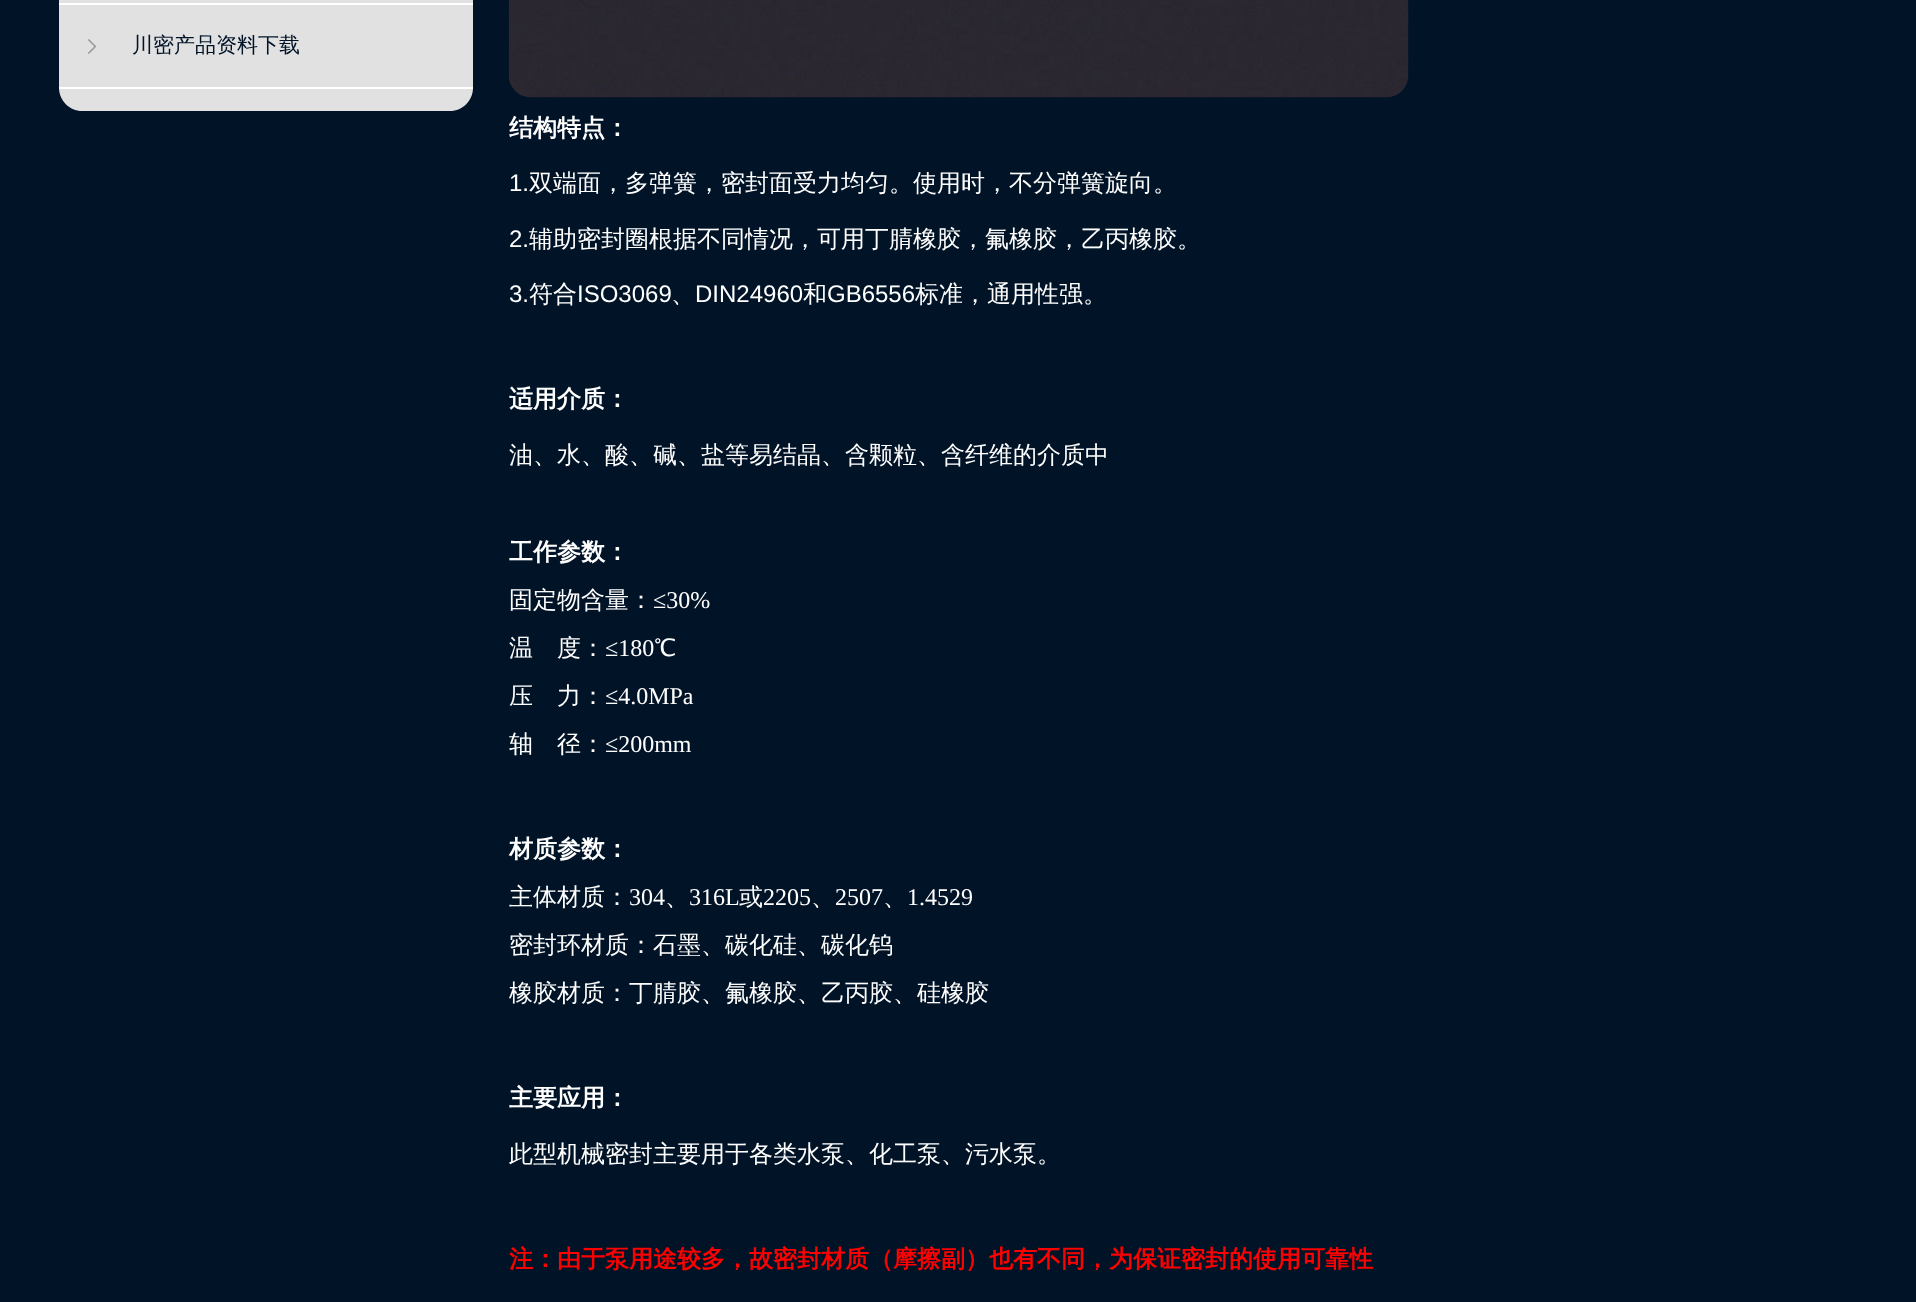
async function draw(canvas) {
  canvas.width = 1916;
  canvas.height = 1302;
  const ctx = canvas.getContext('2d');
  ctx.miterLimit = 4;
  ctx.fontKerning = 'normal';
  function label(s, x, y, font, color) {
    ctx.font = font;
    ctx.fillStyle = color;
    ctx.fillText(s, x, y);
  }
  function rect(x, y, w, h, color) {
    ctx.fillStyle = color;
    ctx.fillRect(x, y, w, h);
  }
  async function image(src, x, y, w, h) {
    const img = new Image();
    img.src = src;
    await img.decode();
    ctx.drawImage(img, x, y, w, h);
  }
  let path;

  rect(0, 0, 1916, 1302, '#001327');
  ctx.fillStyle = '#e1e1e1';
  path = new Path2D('M59-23H473V88C473 100.5 462.5 111 450 111H82C69.5 111 59 100.5 59 88Z');
  ctx.fill(path);
  rect(59, 3, 414, 2, '#fff');
  rect(59, 87, 414, 2, '#fff');
  await image('assets/img1.png', 88, 39, 9, 15);
  label('川密产品资料下载', 132, 52, '500 21px WenQuanYi Zen Hei', '#001327');
  await image('assets/img2.png', 508, 0, 901, 98);
  label('结构特点：', 509, 136, 'bold 24px WenQuanYi Zen Hei', '#fff');
  label('1.', 509, 191, '24px Liberation Sans', '#fff');
  label('双端面，多弹簧，密封面受力均匀。使用时，不分弹簧旋向。', 529, 191, '500 24px WenQuanYi Zen Hei', '#fff');
  label('2.', 509, 247, '24px Liberation Sans', '#fff');
  label('辅助密封圈根据不同情况，可用丁腈橡胶，氟橡胶，乙丙橡胶。', 529, 247, '500 24px WenQuanYi Zen Hei', '#fff');
  label('3.', 509, 302, '24px Liberation Sans', '#fff');
  label('符合', 529, 302, '500 24px WenQuanYi Zen Hei', '#fff');
  label('ISO3069', 577, 302, '24px Liberation Sans', '#fff');
  label('、', 671, 302, '500 24px WenQuanYi Zen Hei', '#fff');
  label('DIN24960', 695, 302, '24px Liberation Sans', '#fff');
  label('和', 803, 302, '500 24px WenQuanYi Zen Hei', '#fff');
  label('GB6556', 827, 302, '24px Liberation Sans', '#fff');
  label('标准，通用性强。', 915, 302, '500 24px WenQuanYi Zen Hei', '#fff');
  label('适用介质：', 509, 407, 'bold 24px WenQuanYi Zen Hei', '#fff');
  label('油、水、酸、碱、盐等易结晶、含颗粒、含纤维的介质中', 509, 463, '500 24px WenQuanYi Zen Hei', '#fff');
  label('工作参数：', 509, 560, 'bold 24px WenQuanYi Zen Hei', '#fff');
  label('固定物含量：', 509, 608, '500 24px WenQuanYi Zen Hei', '#fff');
  label('≤30%', 653, 608, '24px Liberation Serif', '#fff');
  label('温', 509, 656, '500 24px WenQuanYi Zen Hei', '#fff');
  label('度：', 557, 656, '500 24px WenQuanYi Zen Hei', '#fff');
  label('≤180', 605, 656, '24px Liberation Serif', '#fff');
  label('℃', 654, 656, '500 24px WenQuanYi Zen Hei', '#fff');
  label('压', 509, 704, '500 24px WenQuanYi Zen Hei', '#fff');
  label('力：', 557, 704, '500 24px WenQuanYi Zen Hei', '#fff');
  label('≤4.0MPa', 605, 704, '24px Liberation Serif', '#fff');
  label('轴', 509, 752, '500 24px WenQuanYi Zen Hei', '#fff');
  label('径：', 557, 752, '500 24px WenQuanYi Zen Hei', '#fff');
  label('≤200mm', 605, 752, '24px Liberation Serif', '#fff');
  label('材质参数：', 509, 857, 'bold 24px WenQuanYi Zen Hei', '#fff');
  label('主体材质：', 509, 905, '500 24px WenQuanYi Zen Hei', '#fff');
  label('304', 629, 905, '24px Liberation Serif', '#fff');
  label('、', 665, 905, '500 24px WenQuanYi Zen Hei', '#fff');
  label('316L', 689, 905, '24px Liberation Serif', '#fff');
  label('或', 739, 905, '500 24px WenQuanYi Zen Hei', '#fff');
  label('2205', 763, 905, '24px Liberation Serif', '#fff');
  label('、', 811, 905, '500 24px WenQuanYi Zen Hei', '#fff');
  label('2507', 835, 905, '24px Liberation Serif', '#fff');
  label('、', 883, 905, '500 24px WenQuanYi Zen Hei', '#fff');
  label('1.4529', 907, 905, '24px Liberation Serif', '#fff');
  label('密封环材质：石墨、碳化硅、碳化钨', 509, 953, '500 24px WenQuanYi Zen Hei', '#fff');
  label('橡胶材质：丁腈胶、氟橡胶、乙丙胶、硅橡胶', 509, 1001, '500 24px WenQuanYi Zen Hei', '#fff');
  label('主要应用：', 509, 1106, 'bold 24px WenQuanYi Zen Hei', '#fff');
  label('此型机械密封主要用于各类水泵、化工泵、污水泵。', 509, 1162, '500 24px WenQuanYi Zen Hei', '#fff');
  label('注：由于泵用途较多，故密封材质（摩擦副）也有不同，为保证密封的使用可靠性', 509, 1267, 'bold 24px WenQuanYi Zen Hei', '#f00');
}

draw(document.querySelector('canvas'));
